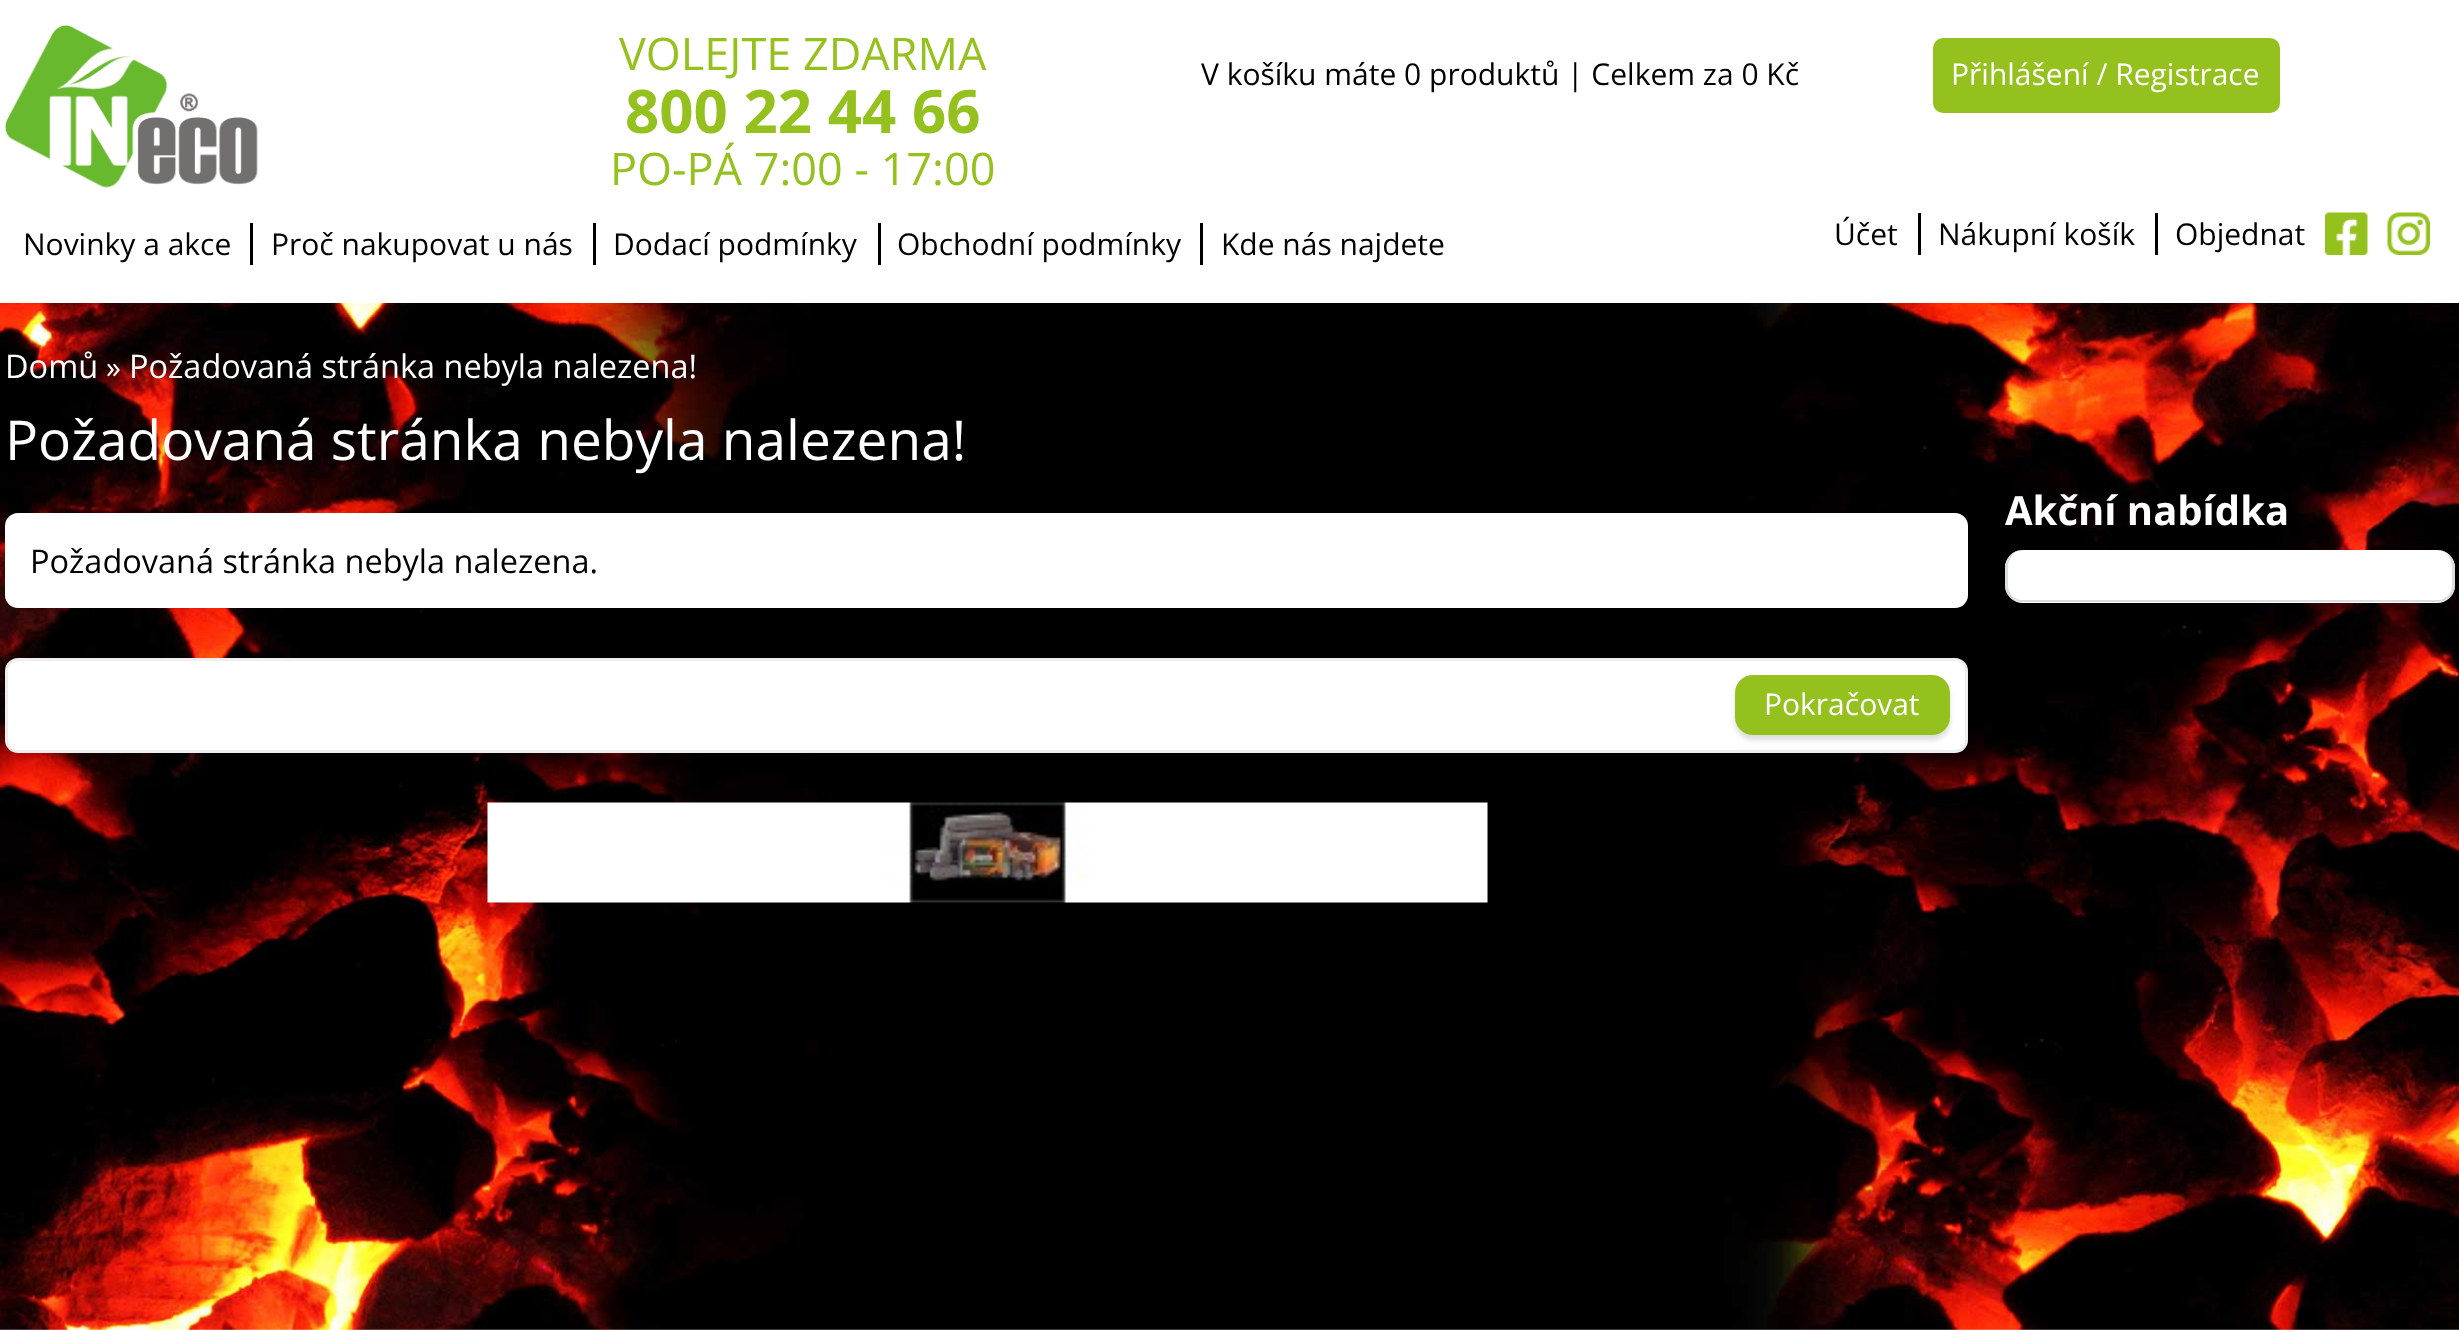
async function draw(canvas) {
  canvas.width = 2459;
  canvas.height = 1330;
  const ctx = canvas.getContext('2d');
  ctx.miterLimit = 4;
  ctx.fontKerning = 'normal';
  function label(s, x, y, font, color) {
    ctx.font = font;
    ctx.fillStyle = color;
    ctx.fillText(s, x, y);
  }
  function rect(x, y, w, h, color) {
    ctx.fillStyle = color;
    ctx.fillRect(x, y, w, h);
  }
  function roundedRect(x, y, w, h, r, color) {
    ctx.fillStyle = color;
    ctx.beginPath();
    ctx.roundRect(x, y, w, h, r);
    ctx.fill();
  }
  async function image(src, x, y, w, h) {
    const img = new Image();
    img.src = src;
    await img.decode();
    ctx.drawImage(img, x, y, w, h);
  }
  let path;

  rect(0, 0, 2459, 1330, '#fff');
  await image('assets/img1.png', 0, 303, 2459, 1027);
  await image('assets/img2.png', 5, 25, 253, 163);
  label('VOLEJTE ZDARMA', 619, 70, '45px Open Sans', '#95c11f');
  label('800 22 44 66', 625, 133, 'bold 60px Open Sans', '#95c11f');
  label('PO-PÁ 7:00 - 17:00', 610, 185, '45px Open Sans', '#95c11f');
  label('V košíku máte 0 produktů | Celkem za 0 Kč', 1201, 85, '30px Open Sans', '#000');
  roundedRect(1933, 38, 347, 75, 10, '#95c11f');
  label('Přihlášení / Registrace', 1951, 85, '30px Open Sans', '#fff');
  label('Novinky a akce', 23, 255, '30px Open Sans', '#000');
  rect(250, 223, 3, 42, '#000');
  label('Proč nakupovat u nás', 271, 255, '30px Open Sans', '#000');
  rect(593, 223, 3, 42, '#000');
  label('Dodací podmínky', 613, 255, '30px Open Sans', '#000');
  rect(878, 223, 3, 42, '#000');
  label('Obchodní podmínky', 897, 255, '30px Open Sans', '#000');
  rect(1200, 223, 3, 42, '#000');
  label('Kde nás najdete', 1221, 255, '30px Open Sans', '#000');
  label('Účet', 1834, 245, '30px Open Sans', '#000');
  rect(1918, 213, 3, 42, '#000');
  label('Nákupní košík', 1938, 245, '30px Open Sans', '#000');
  rect(2155, 213, 3, 42, '#000');
  label('Objednat', 2175, 245, '30px Open Sans', '#000');
  await image('assets/img3.png', 2325, 212, 43, 43);
  await image('assets/img4.png', 2387, 212, 43, 43);
  label('Domů', 5, 378, '32.5px Open Sans', '#fff');
  label('»', 106, 378, '30px Open Sans', '#fff');
  label('Požadovaná stránka nebyla nalezena!', 129, 378, '32.5px Open Sans', '#fff');
  label('Požadovaná stránka nebyla nalezena!', 5, 460, '55px Open Sans', '#fff');
  roundedRect(5, 513, 1963, 95, 13, '#fff');
  label('Požadovaná stránka nebyla nalezena.', 30, 573, '32.5px Open Sans', '#000');
  ctx.fillStyle = '#fff';
  ctx.beginPath();
  ctx.roundRect(6.5, 659.5, 1960, 92, 11.5);
  ctx.fill();
  ctx.strokeStyle = '#eee';
  ctx.lineWidth = 3;
  ctx.stroke();
  ctx.fillStyle = '#ddd';
  ctx.filter = 'blur(2.5px)';
  ctx.beginPath();
  ctx.roundRect(1735, 680, 215, 60, 18);
  ctx.fill();
  ctx.filter = 'none';
  roundedRect(1735, 675, 215, 60, 18, '#95c11f');
  label('Pokračovat', 1764, 715, '30px Open Sans', '#fff');
  await image('assets/img5.png', 487, 802, 1001, 101);
  label('Akční nabídka', 2005, 525, 'bold 40px Open Sans', '#fff');
  roundedRect(2005, 550, 450, 53, 18, '#fff');
  ctx.fillStyle = '#dbdee1';
  path = new Path2D('M2022 550H2438C2447 550 2455 558 2455 568V585C2455 595 2447 602 2438 602H2022C2013 602 2005 595 2005 585V568C2005 558 2013 550 2022 550ZM2022 550H2438C2446 550 2452 558 2452 568V585C2452 593 2446 600 2438 600H2022C2014 600 2008 593 2008 585V568C2008 558 2014 550 2022 550Z');
  ctx.fill(path, 'evenodd');
}

draw(document.querySelector('canvas'));
